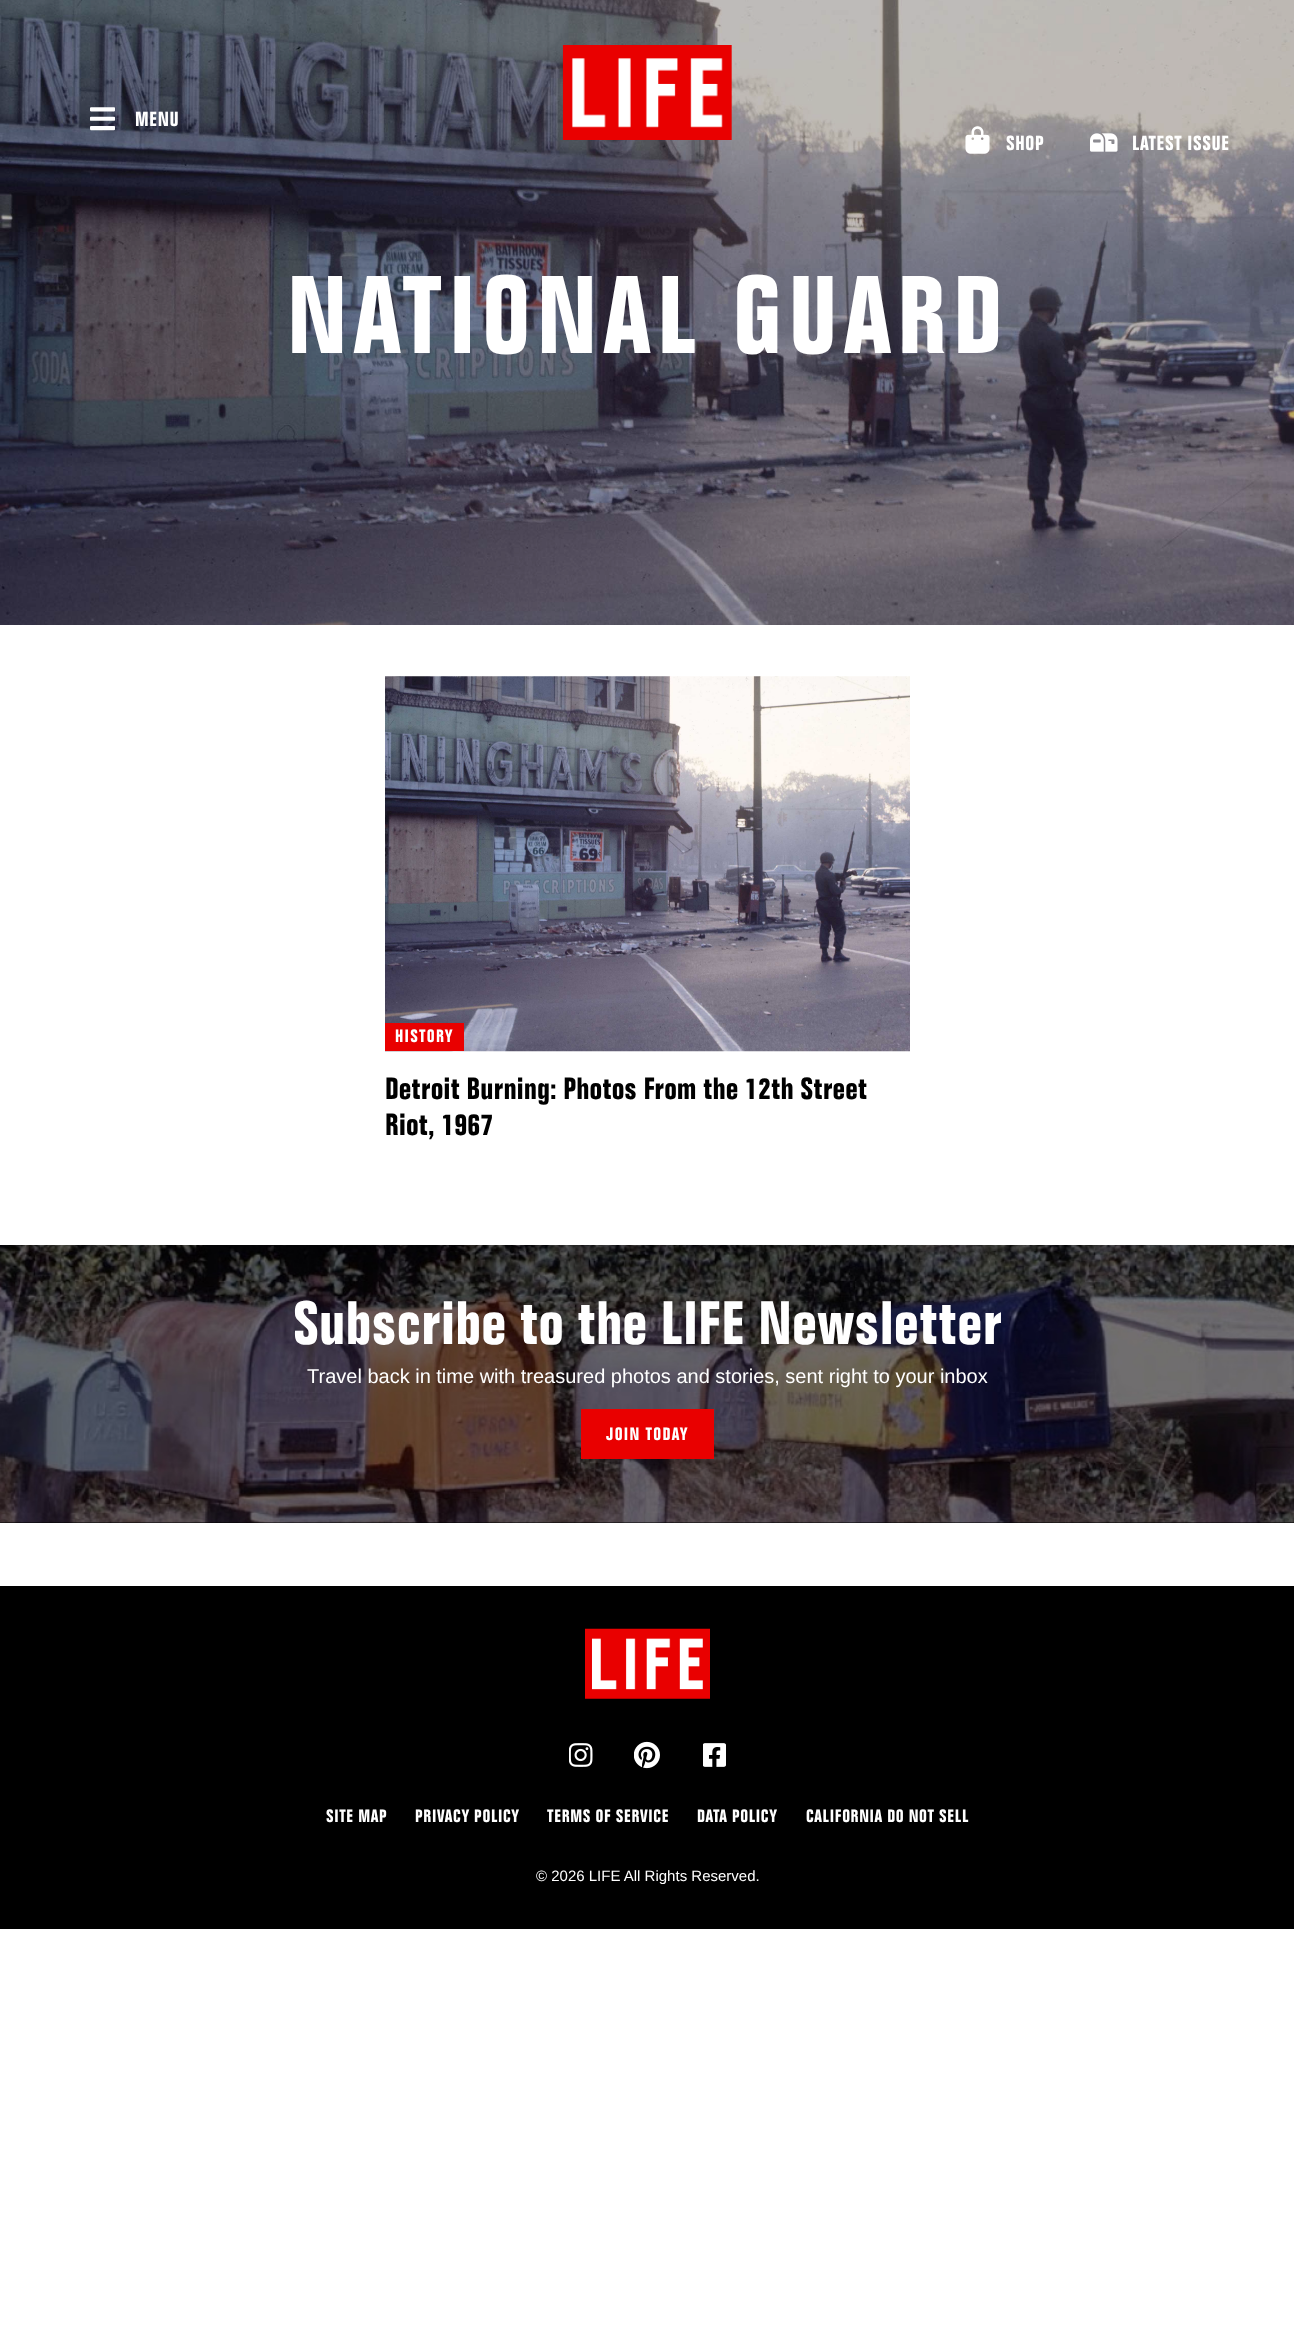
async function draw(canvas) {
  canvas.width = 1294;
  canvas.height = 2349;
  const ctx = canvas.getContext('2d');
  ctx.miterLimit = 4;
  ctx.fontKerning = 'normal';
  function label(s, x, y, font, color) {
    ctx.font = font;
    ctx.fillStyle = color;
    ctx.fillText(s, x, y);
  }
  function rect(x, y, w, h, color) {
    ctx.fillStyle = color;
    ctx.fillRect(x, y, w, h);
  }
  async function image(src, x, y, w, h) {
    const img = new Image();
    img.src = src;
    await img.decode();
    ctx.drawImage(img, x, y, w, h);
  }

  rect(0, 0, 1294, 2349, '#fff');
  await image('assets/img5.png', 0, 0, 1294, 625);
  await image('assets/img1.png', 90, 107, 25, 24);
  ctx.letterSpacing = '0.6px';
  label('MENU', 135, 126, 'bold 20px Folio', '#fff');
  await image('assets/img2.png', 562, 45, 170, 95);
  await image('assets/img3.png', 965, 126, 25, 28);
  label('SHOP', 1006, 150, 'bold 20px Folio', '#fff');
  await image('assets/img4.png', 1090, 133, 28, 19);
  label('LATEST ISSUE', 1132, 150, 'bold 20px Folio', '#fff');
  ctx.letterSpacing = '6.25px';
  label('NATIONAL GUARD', 287, 353, 'bold 108px Folio', '#fff');
  await image('assets/img6.png', 385, 676, 525, 376);
  rect(385, 1023, 79, 28, '#e90000');
  ctx.letterSpacing = '1.25px';
  label('HISTORY', 395, 1042, 'bold 17.5px Folio', '#fff');
  ctx.letterSpacing = '0px';
  label('Detroit Burning: Photos From the 12th Street', 385, 1099, 'bold 30px Folio', '#000');
  label('Riot, 1967', 385, 1135, 'bold 30px Folio', '#000');
  rect(0, 1522, 1294, 1, '#000');
  await image('assets/img7.png', 0, 1245, 1294, 278);
  label('Subscribe to the LIFE Newsletter', 293, 1344, 'bold 60px Folio', '#fff');
  label('Travel back in time with treasured photos and stories, sent right to your inbox', 307, 1383, '20px Liberation Sans', '#fff');
  rect(581, 1409, 133, 50, '#e90000');
  ctx.letterSpacing = '1.25px';
  label('JOIN TODAY', 606, 1440, 'bold 17.5px Folio', '#fff');
  rect(0, 1586, 1294, 343, '#000');
  await image('assets/img8.png', 585, 1628, 125, 71);
  await image('assets/img9.png', 569, 1743, 24, 24);
  await image('assets/img10.png', 634, 1741, 26, 28);
  await image('assets/img11.png', 703, 1743, 23, 24);
  ctx.letterSpacing = '0.6px';
  label('SITE MAP', 326, 1822, 'bold 17.5px Folio', '#fff');
  label('PRIVACY POLICY', 415, 1822, 'bold 17.5px Folio', '#fff');
  label('TERMS OF SERVICE', 547, 1822, 'bold 17.5px Folio', '#fff');
  label('DATA POLICY', 697, 1822, 'bold 17.5px Folio', '#fff');
  label('CALIFORNIA DO NOT SELL', 806, 1822, 'bold 17.5px Folio', '#fff');
  ctx.letterSpacing = '0px';
  label('© 2026 LIFE All Rights Reserved.', 536, 1881, '15px Liberation Sans', '#fff');
}

draw(document.querySelector('canvas'));
